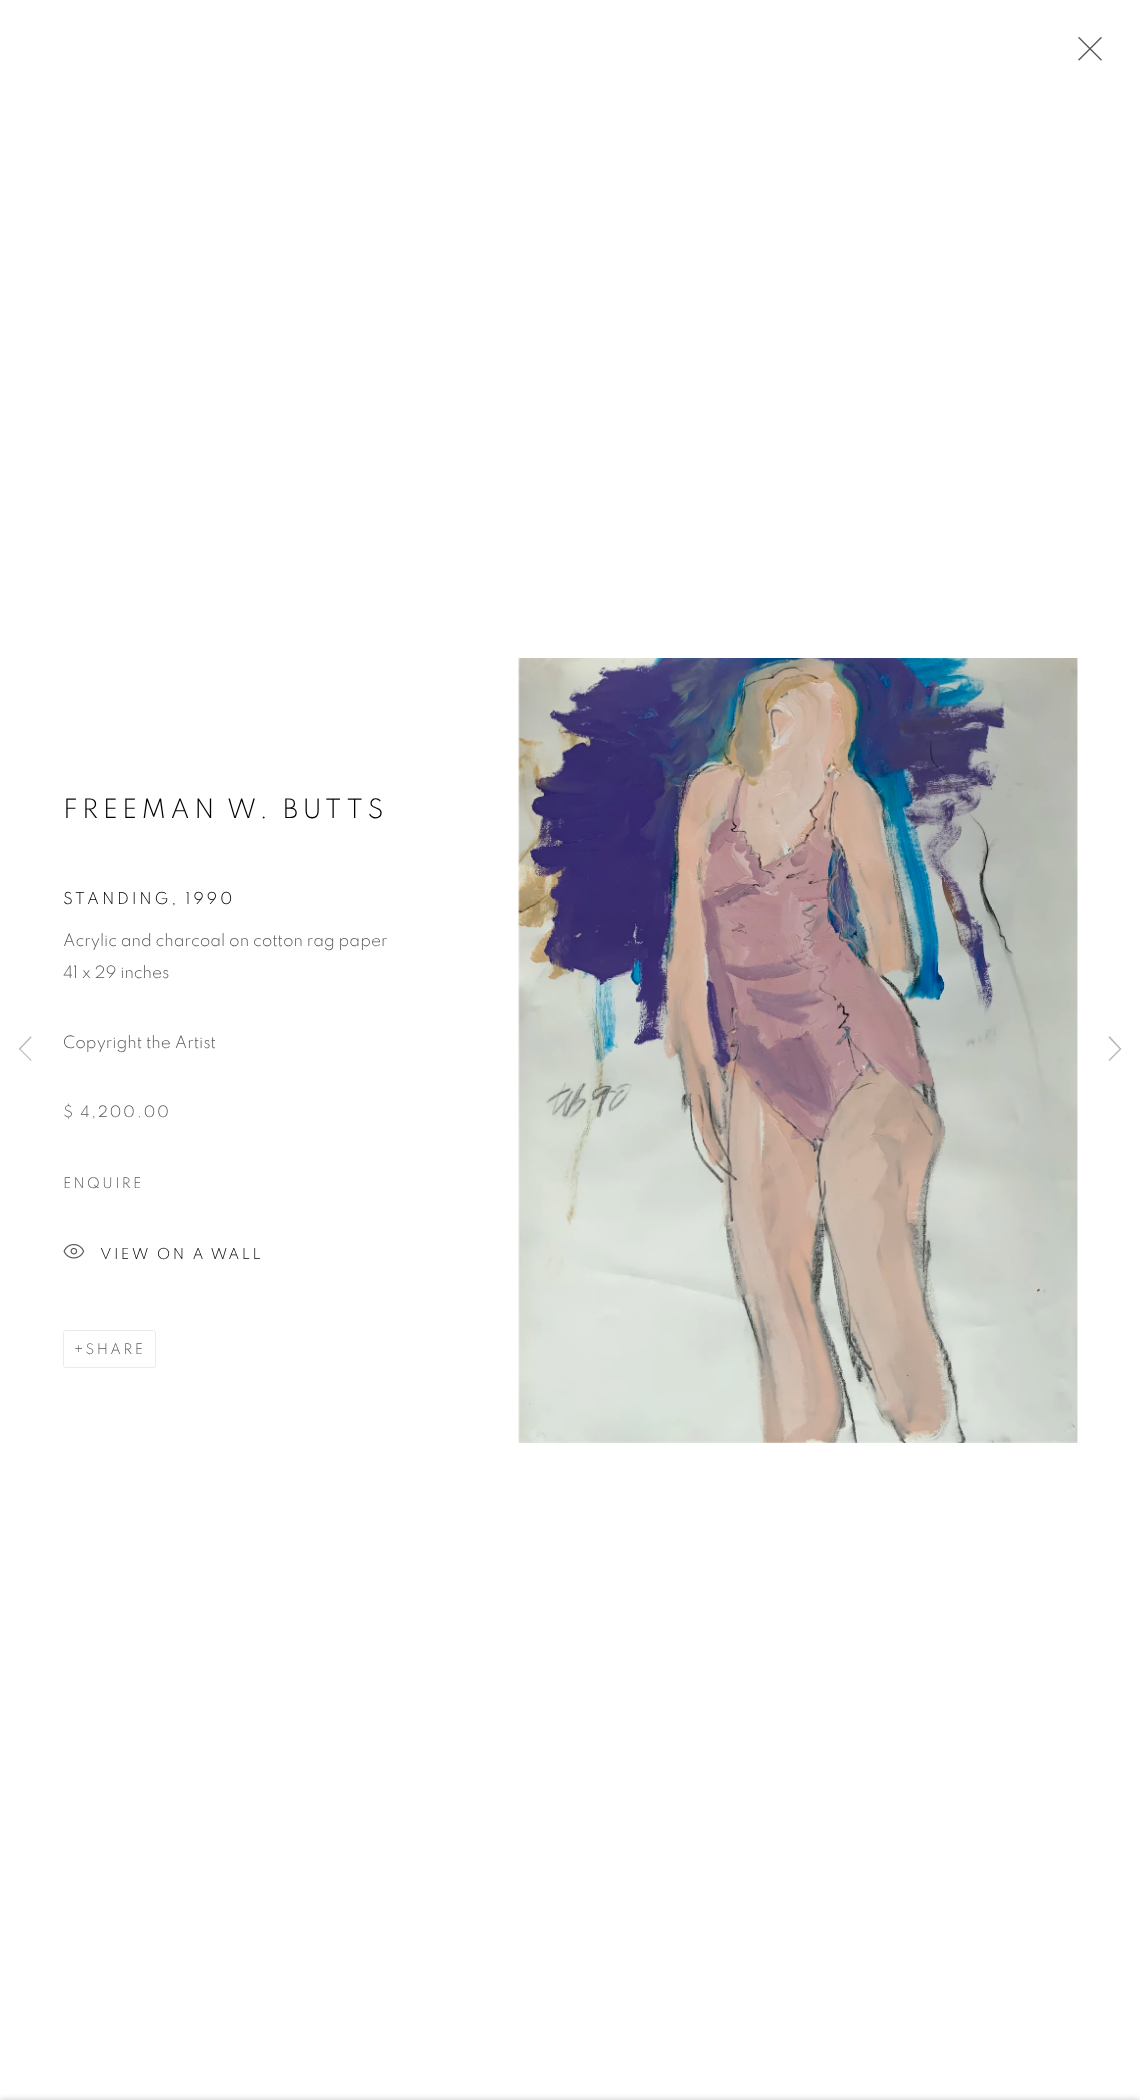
async function draw(canvas) {
  canvas.width = 1140;
  canvas.height = 2100;
  const ctx = canvas.getContext('2d');
  ctx.miterLimit = 4;
  ctx.fontKerning = 'normal';
  function label(s, x, y, font, color) {
    ctx.font = font;
    ctx.fillStyle = color;
    ctx.fillText(s, x, y);
  }
  function rect(x, y, w, h, color) {
    ctx.fillStyle = color;
    ctx.fillRect(x, y, w, h);
  }
  async function image(src, x, y, w, h) {
    const img = new Image();
    img.src = src;
    await img.decode();
    ctx.drawImage(img, x, y, w, h);
  }
  let path;

  rect(0, 0, 1140, 2100, '#fff');
  await image('assets/img1.png', 1078, 37, 24, 24);
  ctx.letterSpacing = '4.4px';
  label('FREEMAN W. BUTTS', 63, 818, '300 27.5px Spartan', '#010101');
  ctx.letterSpacing = '2.75px';
  label('STANDING, 1990', 63, 904, '300 16.9px Spartan', '#010101');
  ctx.letterSpacing = '0px';
  label('Acrylic and charcoal on cotton rag paper', 63, 946, '300 17.5px Spartan', '#585858');
  label('41 x 29 inches', 63, 978, '300 17.5px Spartan', '#585858');
  label('Copyright the Artist', 63, 1048, '300 17.5px Spartan', '#585858');
  ctx.letterSpacing = '1.6px';
  label('$ 4,200.00', 63, 1117, '300 16.25px Spartan', '#585858');
  ctx.letterSpacing = '2.4px';
  label('ENQUIRE', 63, 1188, '300 15px Spartan', '#585858');
  await image('assets/img2.png', 63, 1244, 22, 15);
  label('VIEW ON A WALL', 100, 1259, '300 15.6px Spartan', '#010101');
  ctx.beginPath();
  ctx.roundRect(63.5, 1330.5, 92, 37, 2);
  ctx.strokeStyle = '#ebebeb';
  ctx.stroke();
  label('+SHARE', 74, 1354, '300 15px Spartan', '#585858');
  await image('assets/img3.png', 518, 658, 560, 785);
  ctx.fillStyle = '#b9b9b9';
  path = new Path2D('M19.5 1049.5L31 1061L31.5 1060L20.5 1049L31.5 1037.5L31 1036L18.5 1049Z');
  ctx.fill(path);
  path = new Path2D('M1121.5 1049L1109.5 1036L1108.5 1037.5L1119.5 1049L1108.5 1060L1109.5 1061Z');
  ctx.fill(path);
  ctx.fillStyle = '#0000003b';
  ctx.filter = 'blur(3px)';
  ctx.beginPath();
  ctx.rect(0, 2100, 1140, 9);
  ctx.fill();
  ctx.filter = 'none';
}

draw(document.querySelector('canvas'));
